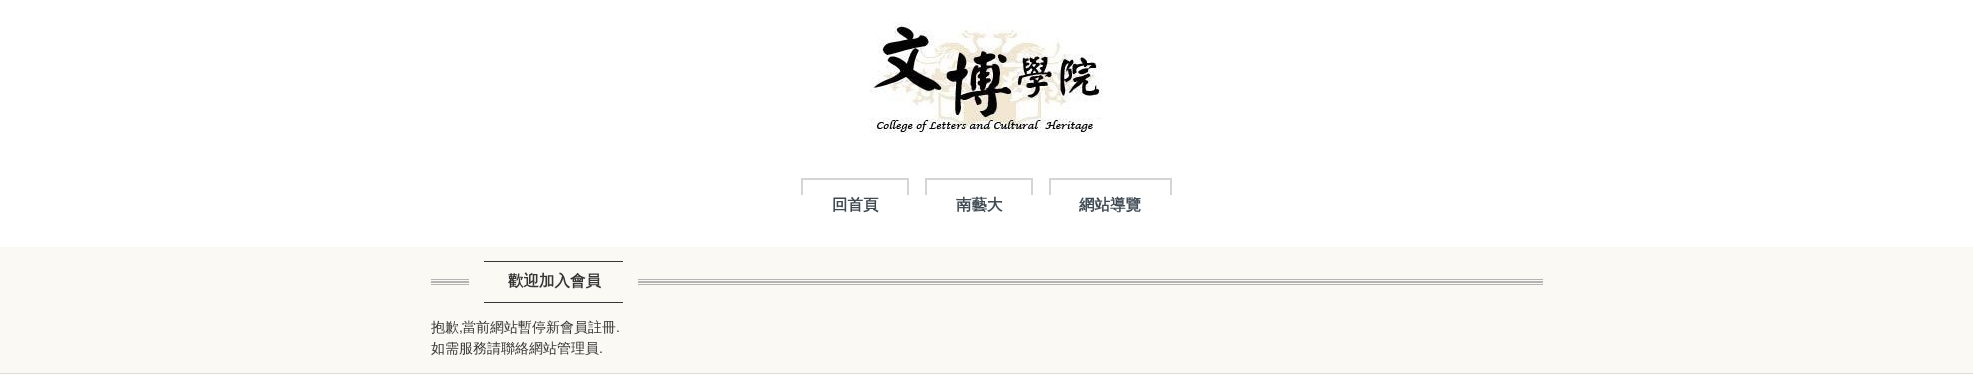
async function draw(canvas) {
  canvas.width = 1973;
  canvas.height = 376;
  const ctx = canvas.getContext('2d');
  ctx.miterLimit = 4;
  ctx.fontKerning = 'normal';
  function label(s, x, y, font, color) {
    ctx.font = font;
    ctx.fillStyle = color;
    ctx.fillText(s, x, y);
  }
  function rect(x, y, w, h, color) {
    ctx.fillStyle = color;
    ctx.fillRect(x, y, w, h);
  }
  async function image(src, x, y, w, h) {
    const img = new Image();
    img.src = src;
    await img.decode();
    ctx.drawImage(img, x, y, w, h);
  }

  rect(0, 0, 1973, 376, '#faf9f3');
  rect(0, 0, 1973, 247, '#fff');
  await image('assets/img1.png', 870, 22, 232, 111);
  rect(801, 178, 108, 2, '#d5d5d5');
  rect(801, 180, 2, 15, '#d5d5d5');
  rect(907, 180, 2, 15, '#d5d5d5');
  label('回首頁', 832, 210, 'bold 15.5px WenQuanYi Zen Hei', '#3f4a53');
  rect(925, 178, 108, 2, '#d5d5d5');
  rect(925, 180, 2, 15, '#d5d5d5');
  rect(1031, 180, 2, 15, '#d5d5d5');
  label('南藝大', 956, 210, 'bold 15.5px WenQuanYi Zen Hei', '#3f4a53');
  rect(1049, 178, 123, 2, '#d5d5d5');
  rect(1049, 180, 2, 15, '#d5d5d5');
  rect(1170, 180, 2, 15, '#d5d5d5');
  label('網站導覽', 1079, 210, 'bold 15.5px WenQuanYi Zen Hei', '#3f4a53');
  await image('assets/img2.png', 431, 279, 1112, 6);
  rect(469, 279, 169, 6, '#faf9f3');
  rect(484, 261, 139, 1, '#373737');
  rect(484, 302, 139, 1, '#373737');
  label('歡迎加入會員', 508, 286, 'bold 15.5px WenQuanYi Zen Hei', '#373737');
  label('抱歉', 431, 332, '500 14px WenQuanYi Zen Hei', '#373737');
  label(',', 459, 332, '14px Liberation Sans', '#373737');
  label('當前網站暫停新會員註冊', 462, 332, '500 14px WenQuanYi Zen Hei', '#373737');
  label('.', 616, 332, '14px Liberation Sans', '#373737');
  label('如需服務請聯絡網站管理員', 431, 353, '500 14px WenQuanYi Zen Hei', '#373737');
  label('.', 599, 353, '14px Liberation Sans', '#373737');
  rect(0, 374, 1973, 2, '#fff');
  rect(0, 373, 1973, 1, '#dbdbdb');
}

draw(document.querySelector('canvas'));
